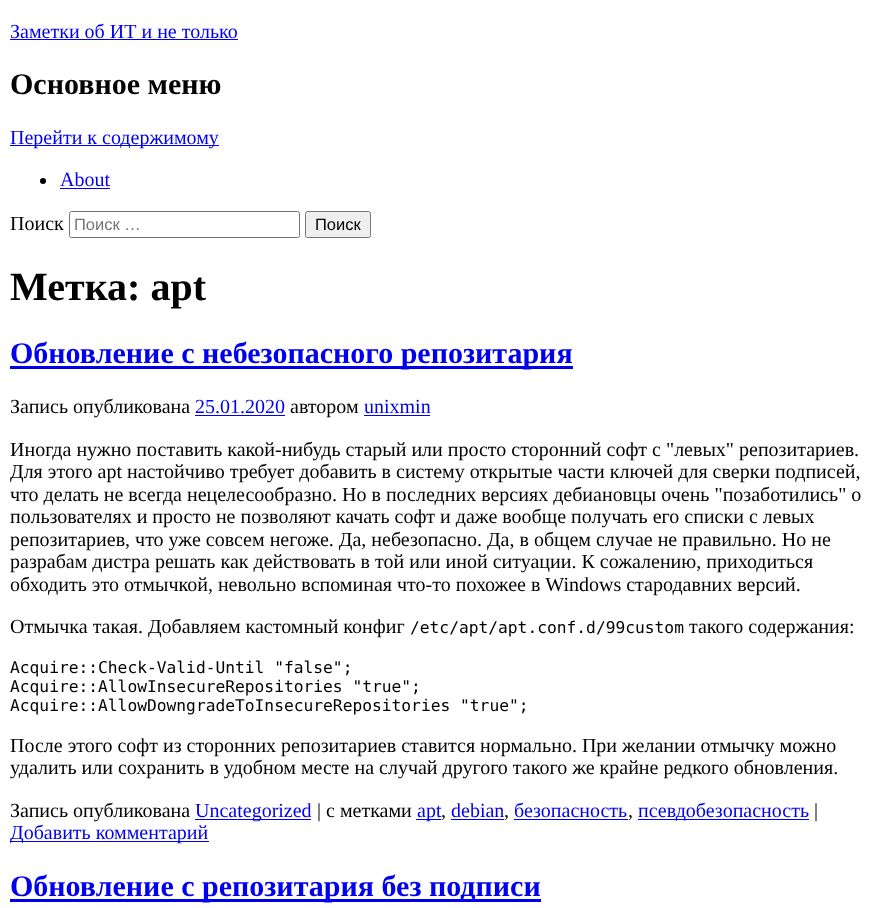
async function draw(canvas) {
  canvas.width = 876;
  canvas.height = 908;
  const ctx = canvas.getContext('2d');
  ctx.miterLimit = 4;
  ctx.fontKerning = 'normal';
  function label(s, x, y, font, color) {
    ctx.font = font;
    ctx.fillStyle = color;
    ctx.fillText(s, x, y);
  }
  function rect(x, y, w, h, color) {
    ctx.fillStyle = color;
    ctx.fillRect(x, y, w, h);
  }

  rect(0, 0, 876, 908, '#fff');
  label('Заметки об ИТ и не только', 10, 38, '20px Liberation Serif', '#00e');
  rect(10, 39, 228, 1, '#00e');
  label('Основное меню', 10, 94, 'bold 30px Liberation Serif', '#000');
  rect(10, 145, 209, 1, '#00e');
  label('Перейти к содержимому', 10, 144, '20px Liberation Serif', '#00e');
  ctx.fillStyle = '#000';
  ctx.beginPath();
  ctx.arc(43, 181, 3, 0, 2 * Math.PI);
  ctx.fill();
  label('About', 60, 186, '20px Liberation Serif', '#00e');
  rect(60, 188, 50, 1, '#00e');
  label('Поиск', 10, 230, '20px Liberation Serif', '#000');
  ctx.beginPath();
  ctx.roundRect(69.5, 211.5, 230, 26, 2);
  ctx.strokeStyle = '#767676';
  ctx.stroke();
  label('Поиск …', 74, 230, '16.5px Liberation Sans', '#757575');
  ctx.fillStyle = '#efefef';
  ctx.beginPath();
  ctx.roundRect(305.5, 211.5, 65, 26, 2);
  ctx.fill();
  ctx.stroke();
  label('Поиск', 315, 230, '16.5px Liberation Sans', '#000');
  label('Метка: apt', 10, 300, 'bold 40px Liberation Serif', '#000');
  rect(10, 366, 563, 3, '#00e');
  label('Обновление с небезопасного репозитария', 10, 363, 'bold 30px Liberation Serif', '#00e');
  label('Запись опубликована', 10, 413, '20px Liberation Serif', '#000');
  label('25.01.2020', 195, 413, '20px Liberation Serif', '#00e');
  rect(195, 415, 90, 1, '#00e');
  label('автором', 290, 413, '20px Liberation Serif', '#000');
  rect(364, 415, 66, 1, '#00e');
  label('unixmin', 364, 413, '20px Liberation Serif', '#00e');
  label('Иногда нужно поставить какой-нибудь старый или просто сторонний софт с "левых" репозитариев.', 10, 456, '20px Liberation Serif', '#000');
  label('Для этого apt настойчиво требует добавить в систему открытые части ключей для сверки подписей,', 10, 478, '20px Liberation Serif', '#000');
  label('что делать не всегда нецелесообразно. Но в последних версиях дебиановцы очень "позаботились" о', 10, 501, '20px Liberation Serif', '#000');
  label('пользователях и просто не позволяют качать софт и даже вообще получать его списки с левых', 10, 523, '20px Liberation Serif', '#000');
  label('репозитариев, что уже совсем негоже. Да, небезопасно. Да, в общем случае не правильно. Но не', 10, 546, '20px Liberation Serif', '#000');
  label('разрабам дистра решать как действовать в той или иной ситуации. К сожалению, приходиться', 10, 568, '20px Liberation Serif', '#000');
  label('обходить это отмычкой, невольно вспоминая что-то похожее в Windows стародавних версий.', 10, 591, '20px Liberation Serif', '#000');
  label('Отмычка такая. Добавляем кастомный конфиг', 10, 633, '20px Liberation Serif', '#000');
  label('/etc/apt/apt.conf.d/99custom', 410, 633, '16.25px DejaVu Sans Mono', '#000');
  label('такого содержания:', 689, 633, '20px Liberation Serif', '#000');
  label('Acquire::Check-Valid-Until "false";', 10, 673, '16.25px DejaVu Sans Mono', '#000');
  label('Acquire::AllowInsecureRepositories "true";', 10, 692, '16.25px DejaVu Sans Mono', '#000');
  label('Acquire::AllowDowngradeToInsecureRepositories "true";', 10, 711, '16.25px DejaVu Sans Mono', '#000');
  label('После этого софт из сторонних репозитариев ставится нормально. При желании отмычку можно', 10, 752, '20px Liberation Serif', '#000');
  label('удалить или сохранить в удобном месте на случай другого такого же крайне редкого обновления.', 10, 774, '20px Liberation Serif', '#000');
  label('Запись опубликована', 10, 817, '20px Liberation Serif', '#000');
  rect(195, 819, 116, 1, '#00e');
  label('Uncategorized', 195, 817, '20px Liberation Serif', '#00e');
  label('| с метками', 317, 817, '20px Liberation Serif', '#000');
  rect(416, 819, 25, 1, '#00e');
  label('apt', 417, 817, '20px Liberation Serif', '#00e');
  label(',', 441, 817, '20px Liberation Serif', '#000');
  label('debian', 451, 817, '20px Liberation Serif', '#00e');
  label(',', 504, 817, '20px Liberation Serif', '#000');
  rect(451, 819, 53, 1, '#00e');
  label('безопасность', 514, 817, '20px Liberation Serif', '#00e');
  label(',', 628, 817, '20px Liberation Serif', '#000');
  rect(514, 819, 114, 1, '#00e');
  rect(638, 819, 171, 1, '#00e');
  label('псевдобезопасность', 638, 817, '20px Liberation Serif', '#00e');
  label('|', 814, 817, '20px Liberation Serif', '#000');
  rect(10, 841, 199, 1, '#00e');
  label('Добавить комментарий', 10, 839, '20px Liberation Serif', '#00e');
  rect(10, 899, 531, 3, '#00e');
  label('Обновление с репозитария без подписи', 10, 896, 'bold 30px Liberation Serif', '#00e');
}

draw(document.querySelector('canvas'));
